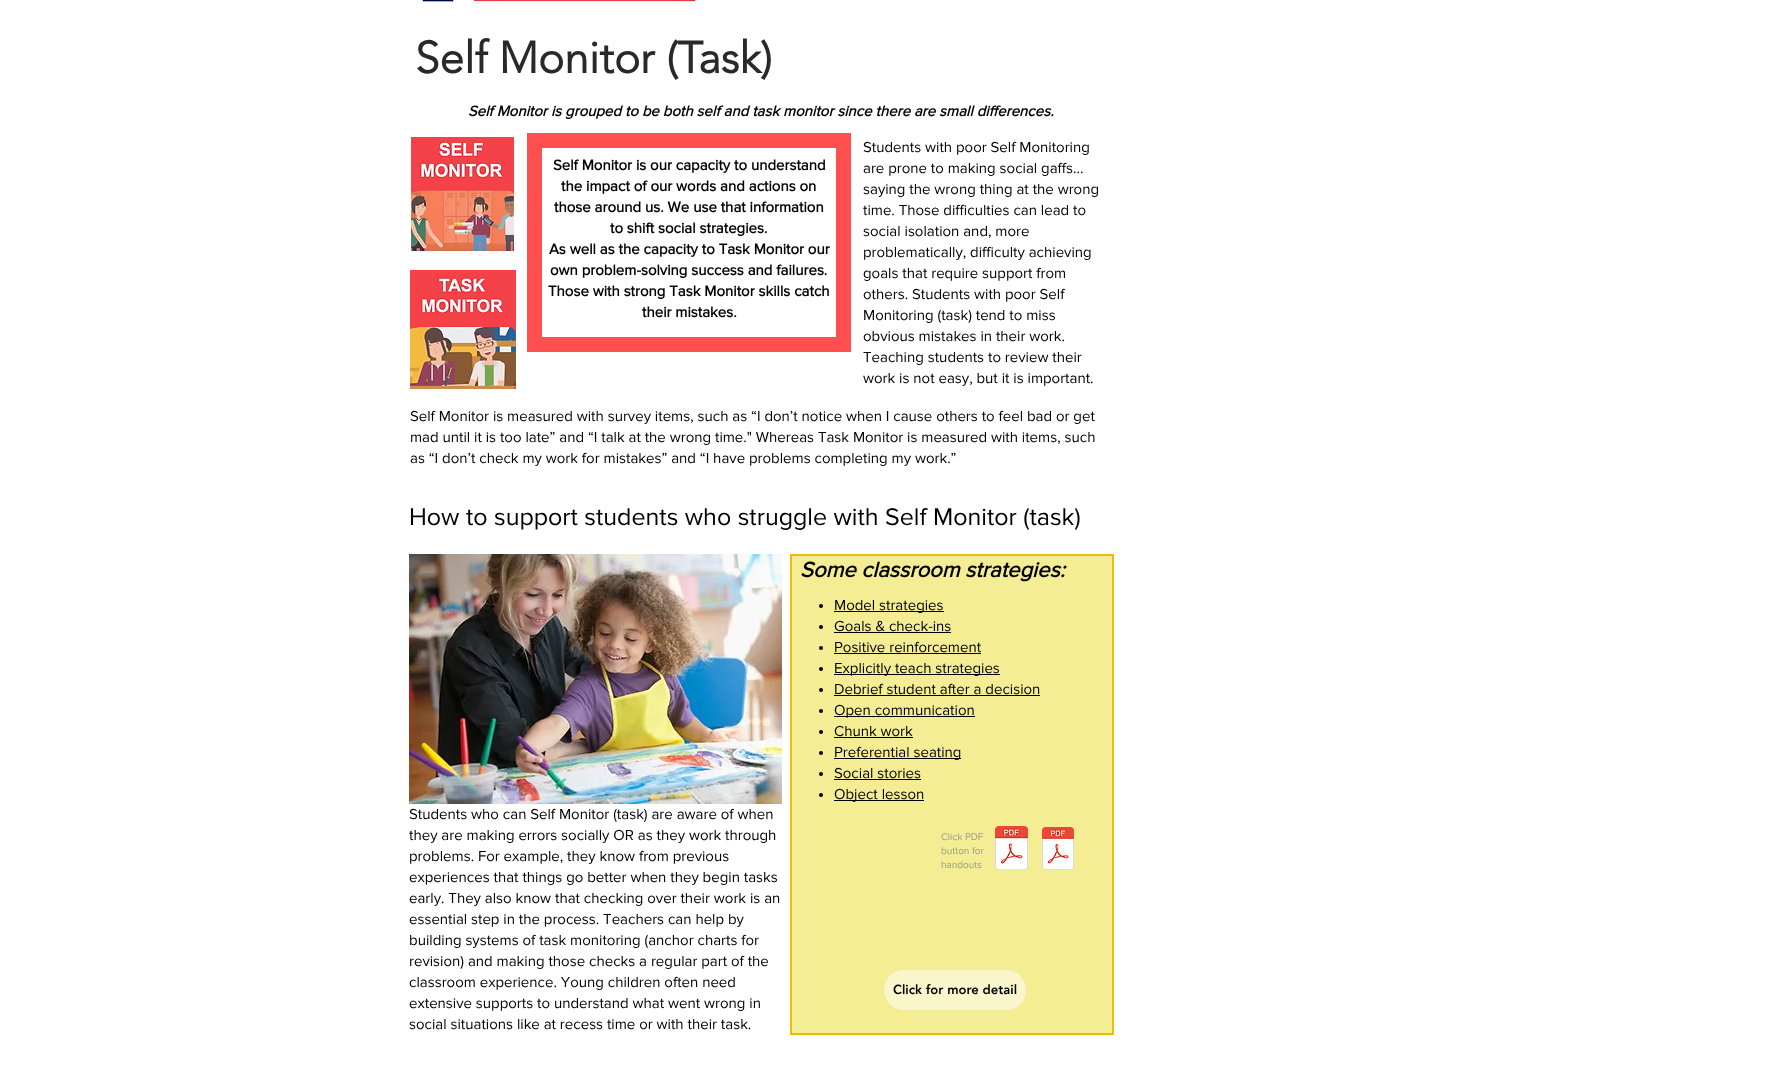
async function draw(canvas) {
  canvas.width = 1782;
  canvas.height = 1085;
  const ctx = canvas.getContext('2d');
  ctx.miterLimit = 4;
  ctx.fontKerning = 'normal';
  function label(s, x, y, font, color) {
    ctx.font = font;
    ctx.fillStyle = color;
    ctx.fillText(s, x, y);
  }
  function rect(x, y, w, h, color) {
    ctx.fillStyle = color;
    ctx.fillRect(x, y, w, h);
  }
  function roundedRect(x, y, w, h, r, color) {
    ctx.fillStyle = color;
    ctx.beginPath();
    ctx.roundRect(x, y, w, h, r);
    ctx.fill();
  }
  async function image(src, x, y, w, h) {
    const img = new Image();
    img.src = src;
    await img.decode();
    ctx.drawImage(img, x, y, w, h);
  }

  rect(0, 0, 1782, 1085, '#fff');
  await image('assets/img1.png', 422, 0, 274, 2);
  label('Self Monitor (Task)', 415, 73, 'bold 44px "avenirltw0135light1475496"', '#292929');
  label('Self Monitor is grouped to be both self and task monitor since there are small differences.', 468, 116, 'italic bold 15px "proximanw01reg"', '#000');
  await image('assets/img2.png', 411, 137, 103, 114);
  ctx.strokeStyle = '#ff4f4f';
  ctx.lineWidth = 15;
  ctx.strokeRect(534.5, 140.5, 309, 204);
  label('Self Monitor is our capacity to understand', 553, 170, 'bold 15px "proximanw01reg"', '#000');
  label('the impact of our words and actions on', 561, 191, 'bold 15px "proximanw01reg"', '#000');
  label('those around us. We use that information', 554, 212, 'bold 15px "proximanw01reg"', '#000');
  label('to shift social strategies.', 610, 233, 'bold 15px "proximanw01reg"', '#000');
  label('As well as the capacity to Task Monitor our', 549, 254, 'bold 15px "proximanw01reg"', '#000');
  label('own problem-solving success and failures.', 550, 275, 'bold 15px "proximanw01reg"', '#000');
  label('Those with strong Task Monitor skills catch', 548, 296, 'bold 15px "proximanw01reg"', '#000');
  label('their mistakes.', 642, 317, 'bold 15px "proximanw01reg"', '#000');
  label('Students with poor Self Monitoring', 863, 152, '15px "proximanw01reg"', '#000');
  label('are prone to making social gaffs...', 863, 173, '15px "proximanw01reg"', '#000');
  label('saying the wrong thing at the wrong', 863, 194, '15px "proximanw01reg"', '#000');
  label('time. Those difficulties can lead to', 863, 215, '15px "proximanw01reg"', '#000');
  label('social isolation and, more', 863, 236, '15px "proximanw01reg"', '#000');
  label('problematically, difficulty achieving', 863, 257, '15px "proximanw01reg"', '#000');
  label('goals that require support from', 863, 278, '15px "proximanw01reg"', '#000');
  label('others. Students with poor Self', 863, 299, '15px "proximanw01reg"', '#000');
  label('Monitoring (task) tend to miss', 863, 320, '15px "proximanw01reg"', '#000');
  label('obvious mistakes in their work.', 863, 341, '15px "proximanw01reg"', '#000');
  label('Teaching students to review their', 863, 362, '15px "proximanw01reg"', '#000');
  label('work is not easy, but it is important.', 863, 383, '15px "proximanw01reg"', '#000');
  await image('assets/img3.png', 410, 270, 106, 119);
  label('Self Monitor is measured with survey items, such as “I don’t notice when I cause others to feel bad or get', 410, 421, '15px "proximanw01reg"', '#000');
  label('mad until it is too late” and “I talk at the wrong time." Whereas Task Monitor is measured with items, such', 410, 442, '15px "proximanw01reg"', '#000');
  label('as “I don’t check my work for mistakes” and “I have problems completing my work.”', 410, 463, '15px "proximanw01reg"', '#000');
  label('How to support students who struggle with Self Monitor (task)', 409, 525, '25px "proximanw01reg"', '#000');
  await image('assets/img4.png', 409, 554, 373, 250);
  ctx.fillStyle = '#f5ed94';
  ctx.beginPath();
  ctx.rect(791, 555, 322, 479);
  ctx.fill();
  ctx.strokeStyle = '#eabd09';
  ctx.lineWidth = 2;
  ctx.stroke();
  label('Some classroom strategies:', 800, 577, 'italic bold 22px "proximanw01reg"', '#000');
  ctx.beginPath();
  ctx.arc(821, 606, 2, 0, 2 * Math.PI);
  ctx.fill();
  rect(834, 611, 110, 1, '#000');
  label('Model strategies', 834, 610, '15px "proximanw01reg"', '#000');
  ctx.beginPath();
  ctx.arc(821, 627, 2, 0, 2 * Math.PI);
  ctx.fill();
  label('Goals & check-ins', 834, 631, '15px "proximanw01reg"', '#000');
  rect(834, 632, 117, 1, '#000');
  ctx.beginPath();
  ctx.arc(821, 648, 2, 0, 2 * Math.PI);
  ctx.fill();
  label('Positive reinforcement', 834, 652, '15px "proximanw01reg"', '#000');
  rect(834, 653, 147, 1, '#000');
  ctx.beginPath();
  ctx.arc(821, 669, 2, 0, 2 * Math.PI);
  ctx.fill();
  rect(834, 674, 166, 1, '#000');
  label('Explicitly teach strategies', 834, 673, '15px "proximanw01reg"', '#000');
  ctx.beginPath();
  ctx.arc(821, 690, 2, 0, 2 * Math.PI);
  ctx.fill();
  label('Debrief student after a decision', 834, 694, '15px "proximanw01reg"', '#000');
  rect(834, 695, 206, 1, '#000');
  ctx.beginPath();
  ctx.arc(821, 711, 2, 0, 2 * Math.PI);
  ctx.fill();
  rect(834, 716, 141, 1, '#000');
  label('Open communication', 834, 715, '15px "proximanw01reg"', '#000');
  ctx.beginPath();
  ctx.arc(821, 732, 2, 0, 2 * Math.PI);
  ctx.fill();
  label('Chunk work', 834, 736, '15px "proximanw01reg"', '#000');
  rect(834, 737, 79, 1, '#000');
  ctx.beginPath();
  ctx.arc(821, 753, 2, 0, 2 * Math.PI);
  ctx.fill();
  rect(834, 758, 127, 1, '#000');
  label('Preferential seating', 834, 757, '15px "proximanw01reg"', '#000');
  ctx.beginPath();
  ctx.arc(821, 774, 2, 0, 2 * Math.PI);
  ctx.fill();
  label('Social stories', 834, 778, '15px "proximanw01reg"', '#000');
  rect(834, 779, 87, 1, '#000');
  ctx.beginPath();
  ctx.arc(821, 795, 2, 0, 2 * Math.PI);
  ctx.fill();
  rect(834, 800, 90, 1, '#000');
  label('Object lesson', 834, 799, '15px "proximanw01reg"', '#000');
  label('Click PDF', 941, 840, '10px "proximanw01reg"', '#999997');
  label('button for', 941, 854, '10px "proximanw01reg"', '#999997');
  label('handouts', 941, 868, '10px "proximanw01reg"', '#999997');
  await image('assets/img5.png', 995, 826, 33, 44);
  await image('assets/img6.png', 1042, 827, 32, 43);
  roundedRect(884, 970, 142, 40, 20, '#faf6cb');
  label('Click for more detail', 893, 994, '900 13px "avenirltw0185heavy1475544"', '#000');
  label('Students who can Self Monitor (task) are aware of when', 409, 819, '15px "proximanw01reg"', '#000');
  label('they are making errors socially OR as they work through', 409, 840, '15px "proximanw01reg"', '#000');
  label('problems. For example, they know from previous', 409, 861, '15px "proximanw01reg"', '#000');
  label('experiences that things go better when they begin tasks', 409, 882, '15px "proximanw01reg"', '#000');
  label('early. They also know that checking over their work is an', 409, 903, '15px "proximanw01reg"', '#000');
  label('essential step in the process. Teachers can help by', 409, 924, '15px "proximanw01reg"', '#000');
  label('building systems of task monitoring (anchor charts for', 409, 945, '15px "proximanw01reg"', '#000');
  label('revision) and making those checks a regular part of the', 409, 966, '15px "proximanw01reg"', '#000');
  label('classroom experience. Young children often need', 409, 987, '15px "proximanw01reg"', '#000');
  label('extensive supports to understand what went wrong in', 409, 1008, '15px "proximanw01reg"', '#000');
  label('social situations like at recess time or with their task.', 409, 1029, '15px "proximanw01reg"', '#000');
}

draw(document.querySelector('canvas'));
